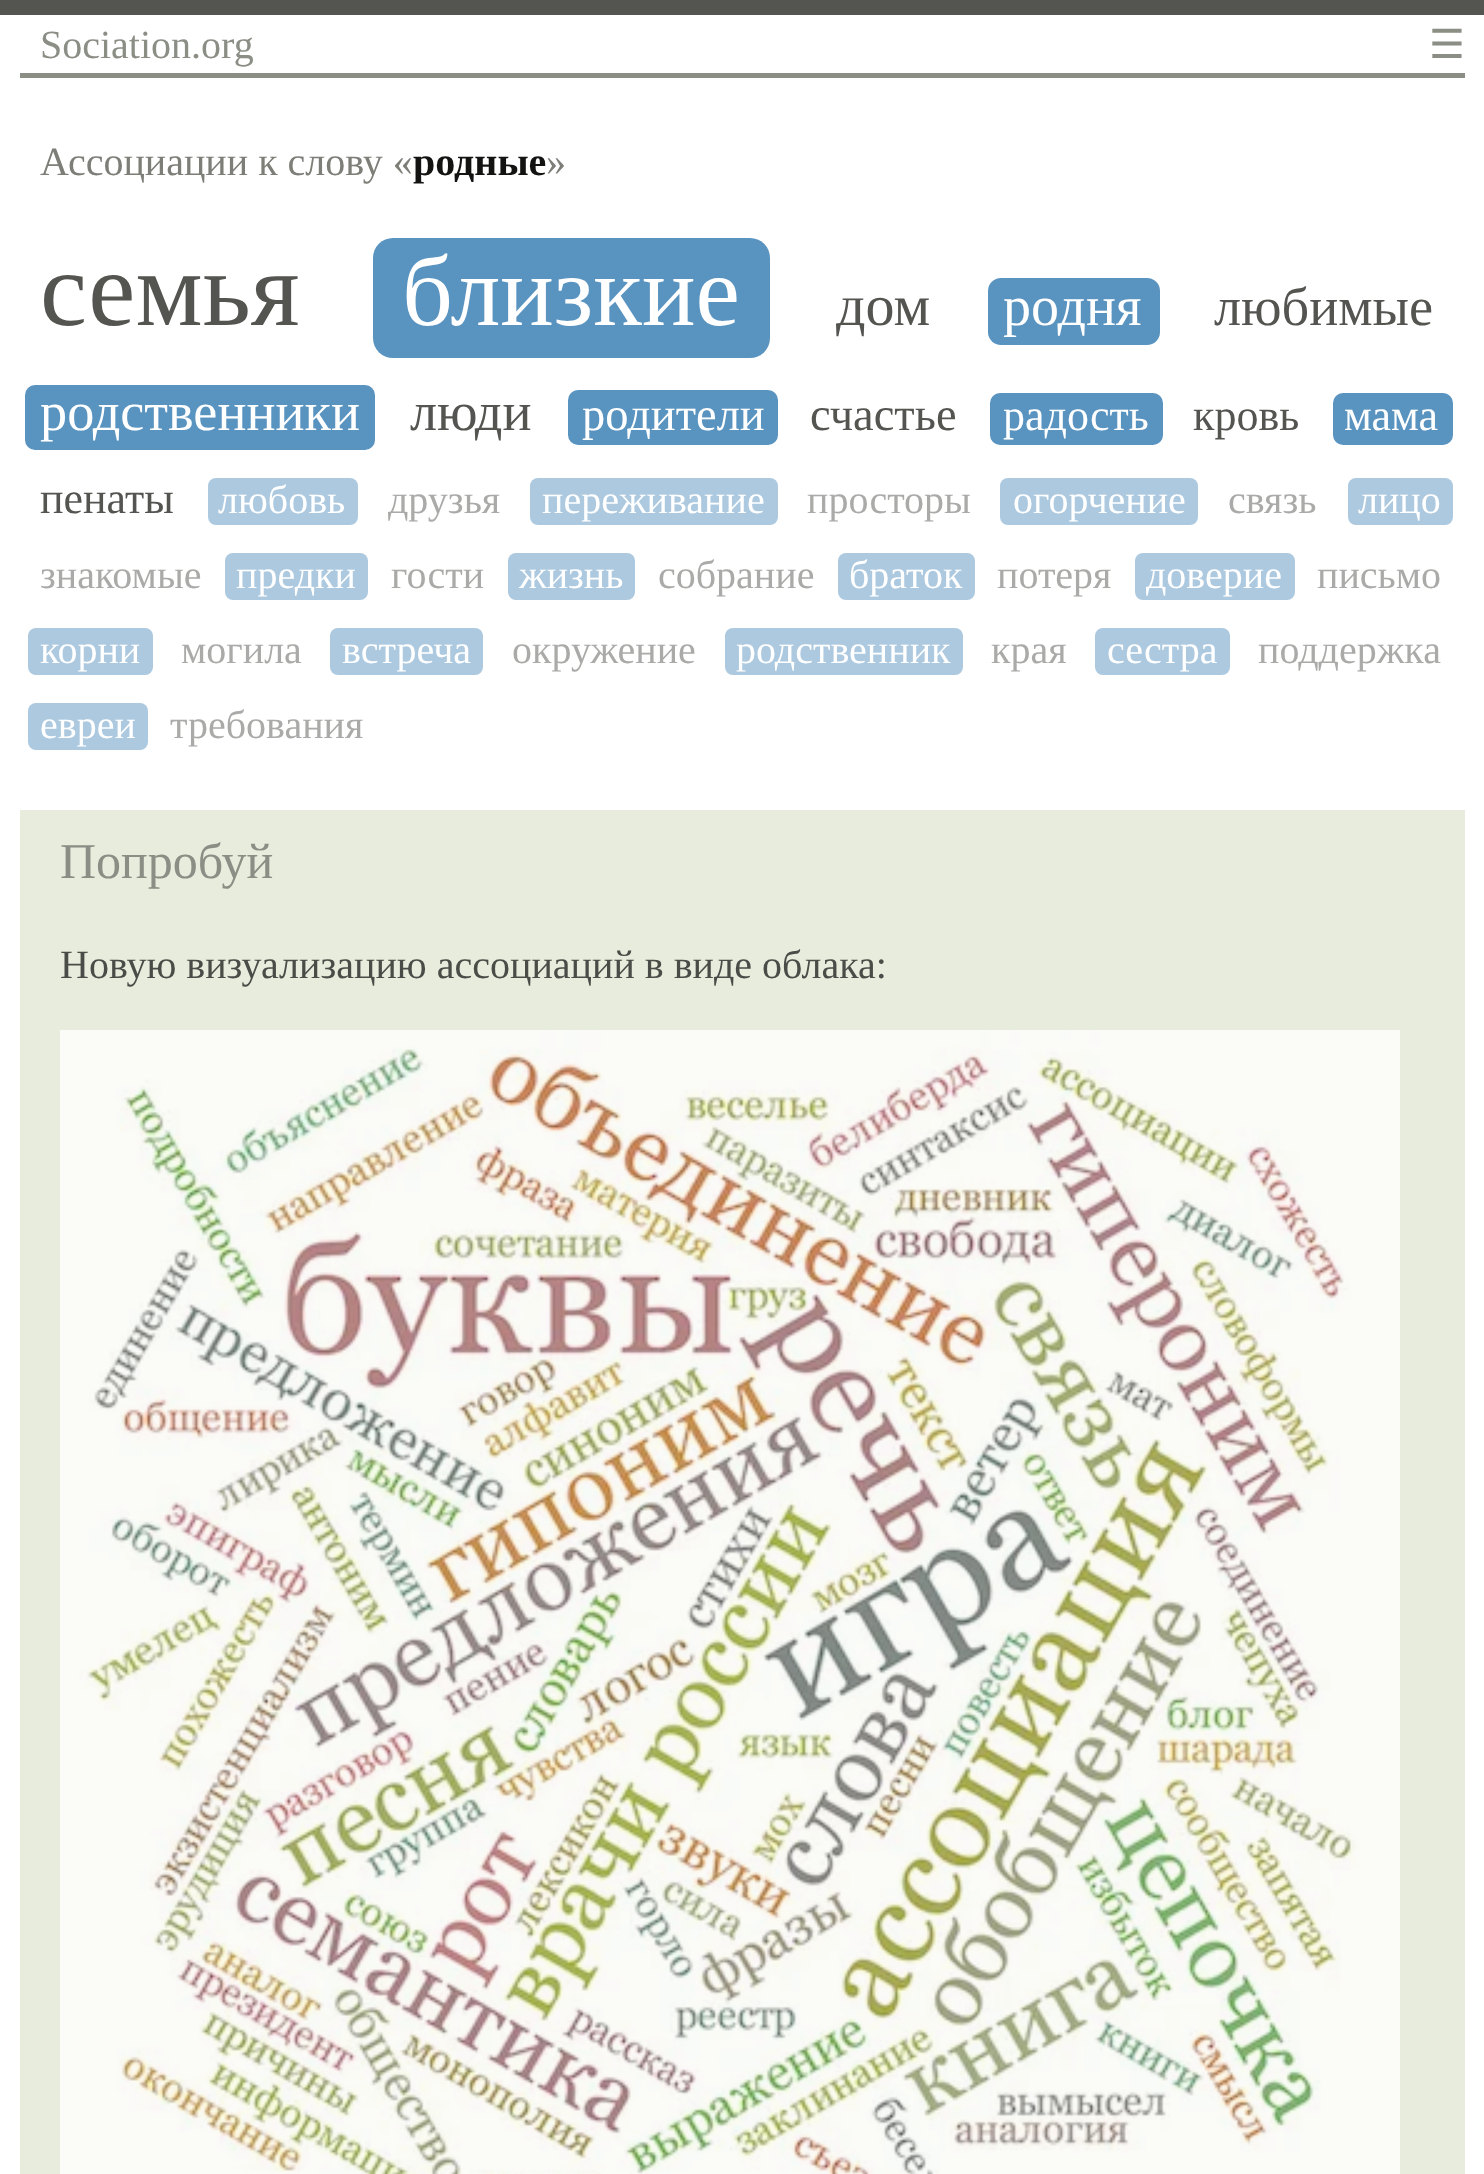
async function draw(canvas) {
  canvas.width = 1484;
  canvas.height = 2174;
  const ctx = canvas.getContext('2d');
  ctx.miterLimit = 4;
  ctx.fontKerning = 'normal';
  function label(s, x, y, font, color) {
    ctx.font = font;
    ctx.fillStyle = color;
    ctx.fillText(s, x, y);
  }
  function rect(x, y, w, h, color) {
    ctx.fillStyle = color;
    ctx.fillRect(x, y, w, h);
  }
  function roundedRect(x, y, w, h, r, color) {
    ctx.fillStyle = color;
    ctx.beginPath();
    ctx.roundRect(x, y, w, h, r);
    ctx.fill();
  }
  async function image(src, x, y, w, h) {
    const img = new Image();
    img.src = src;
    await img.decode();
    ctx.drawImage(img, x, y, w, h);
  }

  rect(0, 0, 1484, 2174, '#fff');
  rect(0, 0, 1484, 15, '#545550');
  rect(20, 73, 1445, 5, '#8b8e85');
  label('Sociation.org', 40, 58, '40px Liberation Serif', '#8b8e85');
  label('☰', 1429, 58, '40px DejaVu Sans', '#8b8e85');
  label('Ассоциации к слову «', 40, 175, '40px Liberation Serif', '#7d7e77');
  label('родные', 413, 175, 'bold 40px Liberation Serif', '#131312');
  label('»', 546, 175, '40px Liberation Serif', '#7d7e77');
  label('семья', 40, 325, '106px Liberation Serif', '#545550');
  roundedRect(373, 238, 397, 120, 20, '#5993c0');
  label('близкие', 402, 325, '100px Liberation Serif', '#fff');
  label('дом', 836, 325, '58px Liberation Serif', '#545550');
  roundedRect(988, 278, 172, 67, 13, '#5993c0');
  label('родня', 1003, 325, '56px Liberation Serif', '#fff');
  label('любимые', 1214, 325, '54.25px Liberation Serif', '#545550');
  roundedRect(25, 385, 350, 65, 10, '#5993c0');
  label('родственники', 40, 430, '54.25px Liberation Serif', '#fff');
  label('люди', 410, 430, '54.25px Liberation Serif', '#545550');
  roundedRect(568, 390, 210, 55, 10, '#5993c0');
  label('родители', 582, 430, '46.5px Liberation Serif', '#fff');
  label('счастье', 810, 430, '46.5px Liberation Serif', '#545550');
  roundedRect(990, 393, 173, 52, 10, '#5993c0');
  label('радость', 1003, 430, '44px Liberation Serif', '#fff');
  label('кровь', 1193, 430, '44px Liberation Serif', '#545550');
  roundedRect(1333, 393, 120, 52, 10, '#5993c0');
  label('мама', 1344, 430, '44px Liberation Serif', '#fff');
  label('пенаты', 40, 513, '44px Liberation Serif', '#545550');
  roundedRect(208, 478, 150, 47, 8, '#acc9e0');
  label('любовь', 218, 513, '40px Liberation Serif', '#fff');
  label('друзья', 388, 513, '40px Liberation Serif', '#aaaaa8');
  roundedRect(530, 478, 248, 47, 8, '#acc9e0');
  label('переживание', 542, 513, '40px Liberation Serif', '#fff');
  label('просторы', 807, 513, '40px Liberation Serif', '#aaaaa8');
  roundedRect(1000, 478, 198, 47, 8, '#acc9e0');
  label('огорчение', 1013, 513, '40px Liberation Serif', '#fff');
  label('связь', 1228, 513, '40px Liberation Serif', '#aaaaa8');
  roundedRect(1348, 478, 105, 47, 8, '#acc9e0');
  label('лицо', 1358, 513, '40px Liberation Serif', '#fff');
  label('знакомые', 40, 588, '40px Liberation Serif', '#aaaaa8');
  roundedRect(225, 553, 143, 47, 8, '#acc9e0');
  label('предки', 236, 588, '40px Liberation Serif', '#fff');
  label('гости', 391, 588, '40px Liberation Serif', '#aaaaa8');
  roundedRect(508, 553, 127, 47, 8, '#acc9e0');
  label('жизнь', 519, 588, '40px Liberation Serif', '#fff');
  label('собрание', 658, 588, '40px Liberation Serif', '#aaaaa8');
  roundedRect(838, 553, 137, 47, 8, '#acc9e0');
  label('браток', 849, 588, '40px Liberation Serif', '#fff');
  label('потеря', 997, 588, '40px Liberation Serif', '#aaaaa8');
  roundedRect(1135, 553, 160, 47, 8, '#acc9e0');
  label('доверие', 1146, 588, '40px Liberation Serif', '#fff');
  label('письмо', 1317, 588, '40px Liberation Serif', '#aaaaa8');
  roundedRect(28, 628, 125, 47, 8, '#acc9e0');
  label('корни', 40, 663, '40px Liberation Serif', '#fff');
  label('могила', 181, 663, '40px Liberation Serif', '#aaaaa8');
  roundedRect(330, 628, 153, 47, 8, '#acc9e0');
  label('встреча', 342, 663, '40px Liberation Serif', '#fff');
  label('окружение', 512, 663, '40px Liberation Serif', '#aaaaa8');
  roundedRect(725, 628, 238, 47, 8, '#acc9e0');
  label('родственник', 736, 663, '40px Liberation Serif', '#fff');
  label('края', 991, 663, '40px Liberation Serif', '#aaaaa8');
  roundedRect(1095, 628, 135, 47, 8, '#acc9e0');
  label('сестра', 1107, 663, '40px Liberation Serif', '#fff');
  label('поддержка', 1258, 663, '40px Liberation Serif', '#aaaaa8');
  roundedRect(28, 703, 120, 47, 8, '#acc9e0');
  label('евреи', 40, 738, '40px Liberation Serif', '#fff');
  label('требования', 170, 738, '40px Liberation Serif', '#aaaaa8');
  rect(20, 810, 1445, 1364, '#e8ecdd');
  label('Попробуй', 60, 878, '50px Liberation Serif', '#8b8e85');
  label('Новую визуализацию ассоциаций в виде облака:', 60, 978, '40px Liberation Serif', '#4a4c47');
  await image('assets/img1.png', 60, 1030, 1340, 1144);
}

draw(document.querySelector('canvas'));
